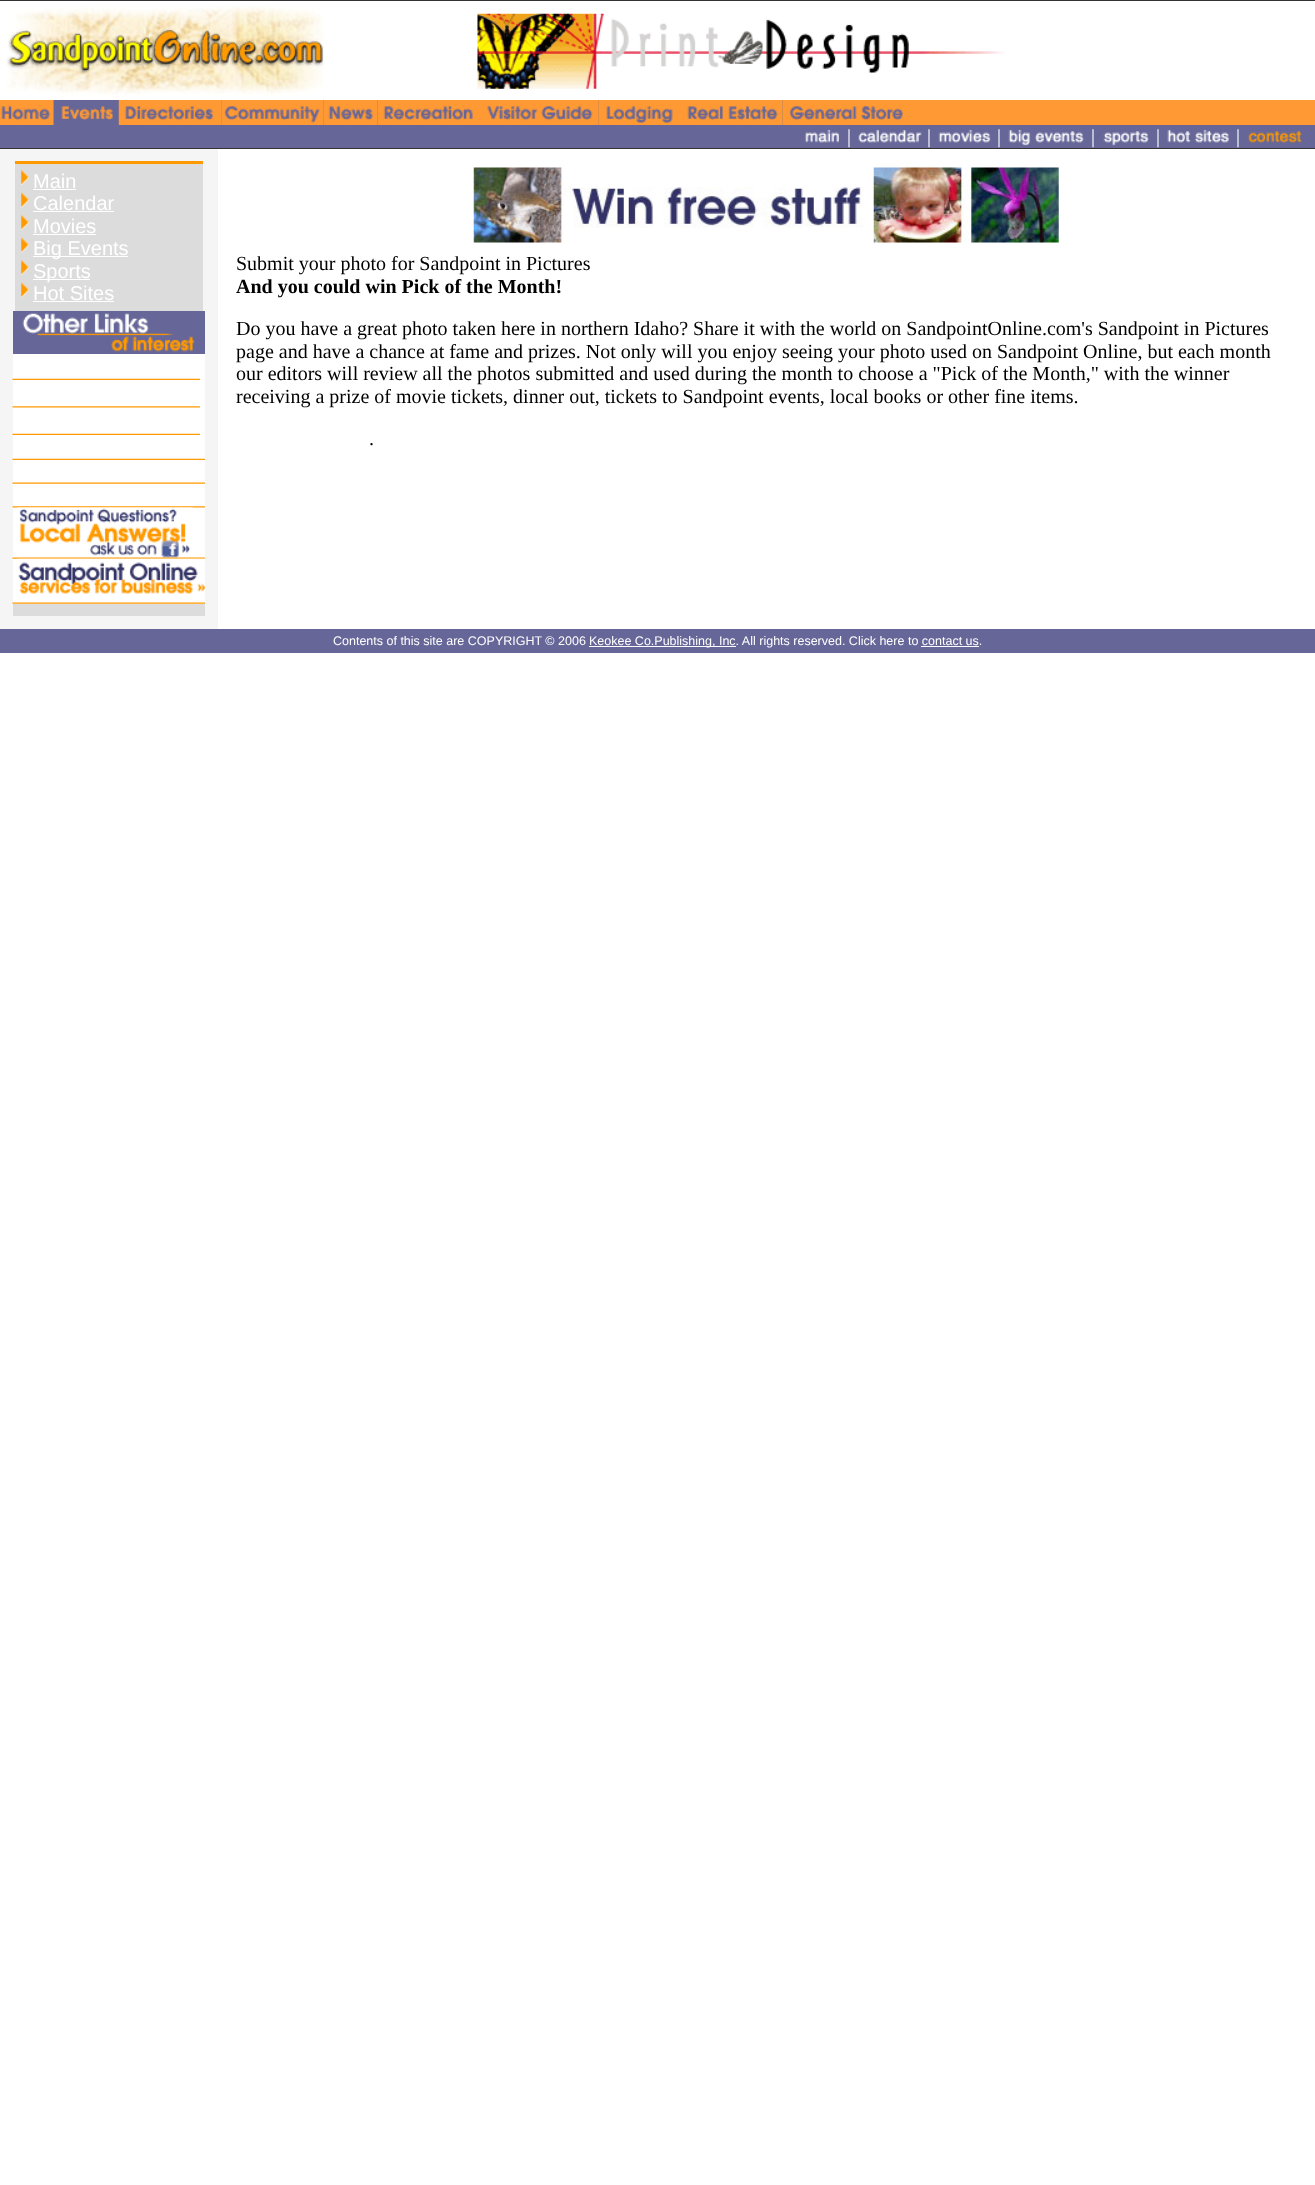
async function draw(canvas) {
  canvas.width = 1315;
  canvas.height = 2185;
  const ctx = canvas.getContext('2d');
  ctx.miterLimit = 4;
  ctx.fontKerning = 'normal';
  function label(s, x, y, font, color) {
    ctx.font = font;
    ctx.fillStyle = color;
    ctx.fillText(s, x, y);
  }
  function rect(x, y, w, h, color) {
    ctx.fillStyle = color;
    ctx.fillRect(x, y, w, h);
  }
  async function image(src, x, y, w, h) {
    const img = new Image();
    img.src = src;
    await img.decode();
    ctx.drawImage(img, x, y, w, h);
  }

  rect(0, 0, 1315, 2185, '#fff');
  rect(0, 0, 1315, 1, '#333');
  await image('assets/img1.png', 6, 6, 318, 90);
  await image('assets/img2.png', 477, 13, 527, 76);
  rect(910, 100, 405, 25, '#f93');
  rect(53, 100, 730, 25, '#669');
  await image('assets/img3.png', 0, 100, 54, 25);
  await image('assets/img4.png', 53, 100, 60, 25);
  await image('assets/img5.png', 118, 100, 104, 25);
  await image('assets/img6.png', 221, 100, 103, 25);
  await image('assets/img7.png', 323, 100, 55, 25);
  await image('assets/img8.png', 377, 100, 103, 25);
  await image('assets/img9.png', 480, 100, 119, 25);
  await image('assets/img10.png', 598, 100, 82, 25);
  await image('assets/img11.png', 680, 100, 103, 25);
  await image('assets/img12.png', 782, 100, 128, 25);
  rect(0, 125, 1315, 23, '#669');
  await image('assets/img13.png', 805, 129, 34, 14);
  label('|', 847, 143, '20px Liberation Serif', '#fff');
  await image('assets/img14.png', 858, 129, 64, 14);
  label('|', 927, 143, '20px Liberation Serif', '#fff');
  await image('assets/img15.png', 938, 129, 53, 14);
  label('|', 997, 143, '20px Liberation Serif', '#fff');
  await image('assets/img16.png', 1008, 129, 76, 17);
  label('|', 1091, 143, '20px Liberation Serif', '#fff');
  await image('assets/img17.png', 1103, 131, 46, 15);
  label('|', 1156, 143, '20px Liberation Serif', '#fff');
  await image('assets/img18.png', 1167, 129, 62, 14);
  label('|', 1236, 143, '20px Liberation Serif', '#fff');
  await image('assets/img19.png', 1248, 131, 54, 12);
  rect(0, 148, 1315, 1, '#333');
  rect(0, 149, 218, 480, '#f5f5f5');
  rect(15, 161, 188, 3, '#f90');
  rect(15, 164, 188, 147, '#dcdcdc');
  await image('assets/img20.png', 21, 170, 8, 15);
  label('Main', 33, 188, '20px Liberation Sans', '#fff');
  rect(33, 189, 43, 1, '#fff');
  await image('assets/img21.png', 21, 192, 8, 16);
  label('Calendar', 33, 210, '20px Liberation Sans', '#fff');
  rect(33, 211, 81, 1, '#fff');
  await image('assets/img20.png', 21, 215, 8, 15);
  label('Movies', 33, 233, '20px Liberation Sans', '#fff');
  rect(33, 234, 63, 1, '#fff');
  await image('assets/img21.png', 21, 237, 8, 16);
  rect(33, 256, 95, 1, '#fff');
  label('Big Events', 33, 255, '20px Liberation Sans', '#fff');
  await image('assets/img20.png', 21, 260, 8, 15);
  rect(33, 279, 57, 1, '#fff');
  label('Sports', 33, 278, '20px Liberation Sans', '#fff');
  await image('assets/img21.png', 21, 282, 8, 16);
  label('Hot Sites', 33, 300, '20px Liberation Sans', '#fff');
  rect(33, 301, 81, 1, '#fff');
  rect(13, 354, 192, 250, '#fff');
  rect(13, 311, 192, 43, '#669');
  await image('assets/img22.png', 22, 313, 172, 39);
  await image('assets/img23.png', 12, 378, 188, 2);
  await image('assets/img24.png', 12, 406, 188, 2);
  await image('assets/img23.png', 12, 433, 188, 2);
  await image('assets/img25.png', 12, 458, 193, 2);
  await image('assets/img26.png', 12, 482, 193, 2);
  await image('assets/img27.png', 12, 506, 193, 2);
  await image('assets/img28.png', 17, 507, 176, 51);
  await image('assets/img29.png', 12, 557, 193, 2);
  await image('assets/img30.png', 17, 558, 188, 36);
  await image('assets/img26.png', 12, 602, 193, 2);
  rect(13, 604, 192, 12, '#dcdcdc');
  await image('assets/img31.png', 473, 167, 586, 76);
  label('Submit your photo for Sandpoint in Pictures', 236, 270, '20px Liberation Serif', '#000');
  label('And you could win Pick of the Month!', 236, 293, 'bold 20px Liberation Serif', '#000');
  label('Do you have a great photo taken here in northern Idaho? Share it with the world on SandpointOnline.com\'s Sandpoint in Pictures', 236, 335, '20px Liberation Serif', '#000');
  label('page and have a chance at fame and prizes. Not only will you enjoy seeing your photo used on Sandpoint Online, but each month', 236, 358, '20px Liberation Serif', '#000');
  label('our editors will review all the photos submitted and used during the month to choose a "Pick of the Month," with the winner', 236, 380, '20px Liberation Serif', '#000');
  label('receiving a prize of movie tickets, dinner out, tickets to Sandpoint events, local books or other fine items.', 236, 403, '20px Liberation Serif', '#000');
  label('.', 369, 445, '20px Liberation Serif', '#000');
  rect(0, 629, 1315, 24, '#669');
  label('Contents of this site are COPYRIGHT © 2006', 333, 645, '12.5px Liberation Sans', '#fff');
  rect(589, 646, 147, 1, '#fff');
  label('Keokee Co.Publishing, Inc. All rights reserved. Click here to contact us.', 589, 645, '12.5px Liberation Sans', '#fff');
  rect(921, 646, 58, 1, '#fff');
}

draw(document.querySelector('canvas'));
